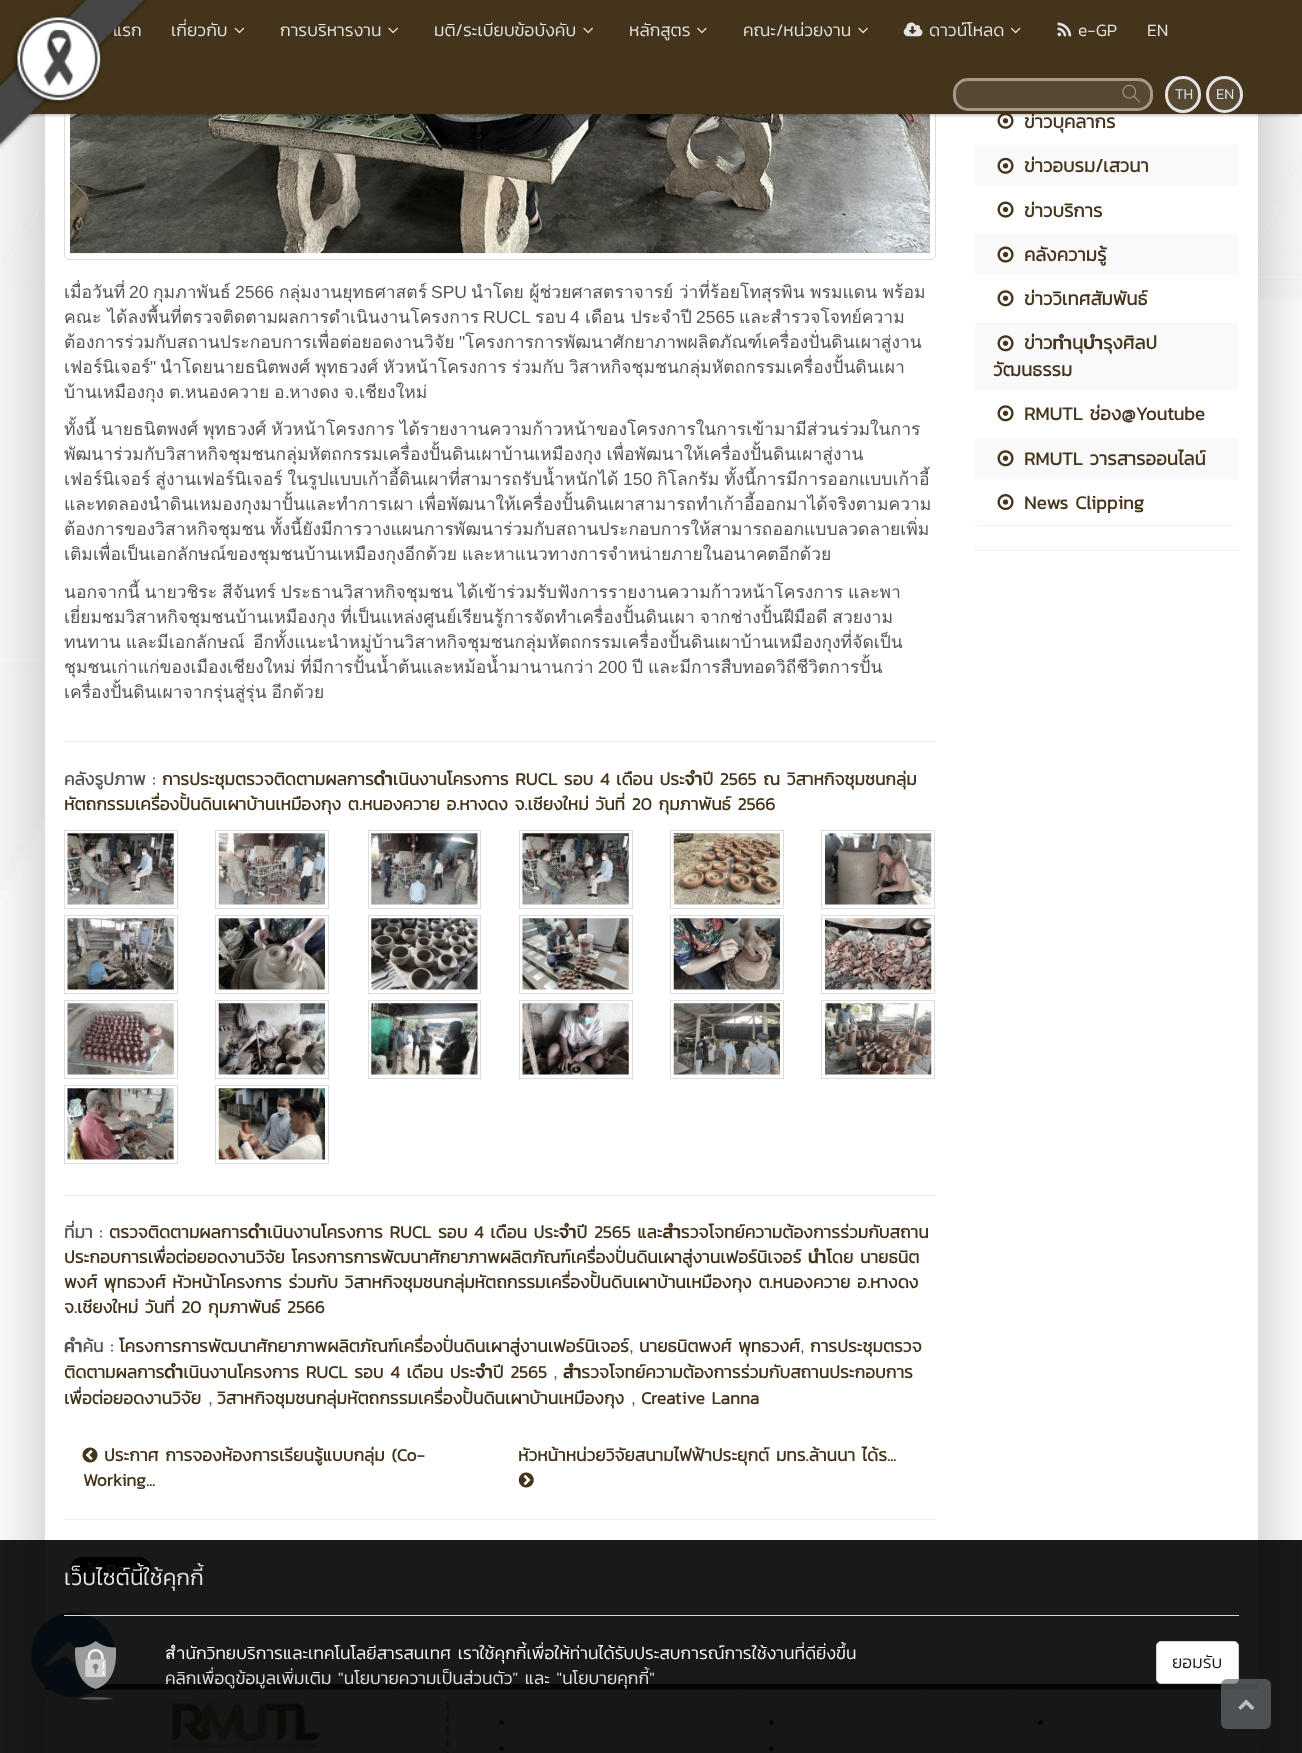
async function draw(canvas) {
  canvas.width = 1302;
  canvas.height = 1753;
  const ctx = canvas.getContext('2d');
  ctx.miterLimit = 4;
  ctx.fontKerning = 'normal';
  function label(s, x, y, font, color) {
    ctx.font = font;
    ctx.fillStyle = color;
    ctx.fillText(s, x, y);
  }
  function rect(x, y, w, h, color) {
    ctx.fillStyle = color;
    ctx.fillRect(x, y, w, h);
  }
  function roundedRect(x, y, w, h, r, color) {
    ctx.fillStyle = color;
    ctx.beginPath();
    ctx.roundRect(x, y, w, h, r);
    ctx.fill();
  }
  async function image(src, x, y, w, h) {
    const img = new Image();
    img.src = src;
    await img.decode();
    ctx.drawImage(img, x, y, w, h);
  }
  let path;

  rect(0, 0, 1302, 1753, '#fff');
  await image('assets/img1.png', 0, 114, 1302, 806);
  ctx.fillStyle = '#00000033';
  ctx.filter = 'blur(31px)';
  ctx.beginPath();
  ctx.rect(33, -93, 1237, 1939);
  ctx.fill();
  ctx.filter = 'none';
  rect(45, 114, 1213, 1570, '#fff');
  ctx.beginPath();
  ctx.roundRect(64.5, -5.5, 871, 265, 4.5);
  ctx.strokeStyle = '#ddd';
  ctx.stroke();
  await image('assets/img10.png', 70, 114, 860, 140);
  ctx.fillStyle = '#0000000d';
  ctx.filter = 'blur(0.5px)';
  ctx.beginPath();
  ctx.roundRect(974, -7, 265, 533, 5);
  ctx.fill();
  ctx.filter = 'none';
  roundedRect(974, -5, 265, 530, 5, '#fff');
  await image('assets/img34.png', 997, 114, 17, 15);
  ctx.fillStyle = '#00000033';
  ctx.filter = 'blur(1px)';
  ctx.beginPath();
  ctx.rect(3, 8, 1297, 108);
  ctx.fill();
  ctx.filter = 'none';
  rect(0, 0, 1302, 113, '#43341b');
  rect(28, 113, 1274, 1, '#43341b');
  label('แรก', 113, 36, '300 17.5px Kanit', '#e3e3e3');
  await image('assets/img2.png', 0, 0, 148, 149);
  label('เกี่ยวกับ', 171, 36, '300 17.5px Kanit', '#e3e3e3');
  await image('assets/img3.png', 234, 27, 11, 7);
  label('การบริหารงาน', 280, 36, '300 17.5px Kanit', '#e3e3e3');
  await image('assets/img4.png', 388, 27, 10, 7);
  label('มติ/ระเบียบข้อบังคับ', 434, 36, '300 17.5px Kanit', '#e3e3e3');
  await image('assets/img4.png', 583, 27, 10, 7);
  label('หลักสูตร', 629, 36, '300 17.5px Kanit', '#e3e3e3');
  await image('assets/img5.png', 697, 27, 10, 7);
  label('คณะ/หน่วยงาน', 743, 36, '300 17.5px Kanit', '#e3e3e3');
  await image('assets/img4.png', 858, 27, 10, 7);
  await image('assets/img6.png', 903, 22, 20, 15);
  label('ดาวน์โหลด', 929, 36, '300 17.5px Kanit', '#e3e3e3');
  await image('assets/img7.png', 1010, 27, 11, 7);
  await image('assets/img8.png', 1057, 22, 15, 15);
  label('e-GP', 1078, 36, '300 17.5px Kanit', '#e3e3e3');
  label('EN', 1147, 36, '300 17.5px Kanit', '#e3e3e3');
  ctx.fillStyle = '#574932';
  ctx.beginPath();
  ctx.roundRect(954.5, 79.5, 197, 30, 13.5);
  ctx.fill();
  ctx.strokeStyle = '#a19a8d';
  ctx.lineWidth = 3;
  ctx.stroke();
  await image('assets/img9.png', 1122, 84, 18, 19);
  ctx.beginPath();
  ctx.roundRect(1166.5, 77.5, 33, 34, 16.5);
  ctx.fill();
  ctx.strokeStyle = '#e3e3e3';
  ctx.stroke();
  label('TH', 1175, 99, '300 15px Kanit', '#e3e3e3');
  ctx.fillStyle = '#574932';
  ctx.beginPath();
  ctx.arc(1224.5, 94.5, 17, 0, 2 * Math.PI);
  ctx.fill();
  ctx.stroke();
  label('EN', 1216, 99, '300 15px Kanit', '#e3e3e3');
  label('เมื่อวันที่', 64, 298, '17.5px Loma', '#555');
  label('20', 129, 298, '17.5px Liberation Sans', '#555');
  label('กุมภาพันธ์', 153, 298, '17.5px Loma', '#555');
  label('2566', 235, 298, '17.5px Liberation Sans', '#555');
  label('กลุ่มงานยุทธศาสตร์', 279, 298, '17.5px Loma', '#555');
  label('SPU', 431, 298, '17.5px Liberation Sans', '#555');
  ctx.wordSpacing = '-0.5px';
  label('นำโดย ผู้ช่วยศาสตราจารย์ ว่าที่ร้อยโทสุรพิน พรมแดน พร้อม', 471, 298, '17.5px Loma', '#555');
  ctx.wordSpacing = '0px';
  label('คณะ ได้ลงพื้นที่ตรวจติดตามผลการดำเนินงานโครงการ', 64, 323, '17.5px Loma', '#555');
  label('RUCL', 483, 323, '17.5px Liberation Sans', '#555');
  label('รอบ', 535, 323, '17.5px Loma', '#555');
  label('4', 570, 323, '17.5px Liberation Sans', '#555');
  label('เดือน ประจำปี', 585, 323, '17.5px Loma', '#555');
  label('2565', 696, 323, '17.5px Liberation Sans', '#555');
  label('และสำรวจโจทย์ความ', 739, 323, '17.5px Loma', '#555');
  label('ต้องการร่วมกับสถานประกอบการเพื่อต่อยอดงานวิจัย', 64, 348, '17.5px Loma', '#555');
  label('"', 459, 348, '17.5px Liberation Sans', '#555');
  label('โครงการการพัฒนาศักยาภาพผลิตภัณฑ์เครื่องปั่นดินเผาสู่งาน', 465, 348, '17.5px Loma', '#555');
  label('เฟอร์นิเจอร์', 64, 373, '17.5px Loma', '#555');
  label('"', 150, 373, '17.5px Liberation Sans', '#555');
  ctx.wordSpacing = '-1px';
  label('นำโดยนายธนิตพงศ์ พุทธวงศ์ หัวหน้าโครงการ ร่วมกับ วิสาหกิจชุมชนกลุ่มหัตถกรรมเครื่องปั้นดินเผา', 160, 373, '17.5px Loma', '#555');
  label('บ้านเหมืองกุง ต', 64, 398, '17.5px Loma', '#555');
  ctx.wordSpacing = '0px';
  label('.', 180, 398, '17.5px Liberation Sans', '#555');
  ctx.wordSpacing = '-1px';
  label('หนองควาย อ', 185, 398, '17.5px Loma', '#555');
  ctx.wordSpacing = '0px';
  label('.', 285, 398, '17.5px Liberation Sans', '#555');
  ctx.wordSpacing = '-1px';
  label('หางดง จ', 289, 398, '17.5px Loma', '#555');
  ctx.wordSpacing = '0px';
  label('.', 354, 398, '17.5px Liberation Sans', '#555');
  label('เชียงใหม่', 359, 398, '17.5px Loma', '#555');
  ctx.wordSpacing = '-1px';
  label('ทั้งนี้ นายธนิตพงศ์ พุทธวงศ์ หัวหน้าโครงการ ได้รายงาานความก้าวหน้าของโครงการในการเข้ามามีส่วนร่วมในการ', 64, 435, '17.5px Loma', '#555');
  label('พัฒนาร่วมกับวิสาหกิจชุมชนกลุ่มหัตถกรรมเครื่องปั้นดินเผาบ้านเหมืองกุง เพื่อพัฒนาให้เครื่องปั้นดินเผาสู่งาน', 64, 460, '17.5px Loma', '#555');
  label('เฟอร์นิเจอร์ สู่งานเฟอร์นิเจอร์ ในรูปแบบเก้าอี้ดินเผาที่สามารถรับน้ำหนักได้', 64, 485, '17.5px Loma', '#555');
  ctx.wordSpacing = '0px';
  label('150', 623, 485, '17.5px Liberation Sans', '#555');
  ctx.wordSpacing = '-1px';
  label('กิโลกรัม ทั้งนี้การมีการออกแบบเก้าอี้', 657, 485, '17.5px Loma', '#555');
  label('และทดลองนำดินเหมองกุงมาปั้นและทำการเผา เพื่อพัฒนาให้เครื่องปั้นดินเผาสามารถทำเก้าอี้ออกมาได้จริงตามความ', 64, 510, '17.5px Loma', '#555');
  label('ต้องการของวิสาหกิจชุมชน ทั้งนี้ยังมีการวางแผนการพัฒนาร่วมกับสถานประกอบการให้สามารถออกแบบลวดลายเพิ่ม', 64, 535, '17.5px Loma', '#555');
  label('เติมเพื่อเป็นเอกลักษณ์ของชุมชนบ้านเหมืองกุงอีกด้วย และหาแนวทางการจำหน่ายภายในอนาคตอีกด้วย', 64, 560, '17.5px Loma', '#555');
  label('นอกจากนี้ นายวชิระ สีจันทร์ ประธานวิสาหกิจชุมชน ได้เข้าร่วมรับฟังการรายงานความก้าวหน้าโครงการ และพา', 64, 598, '17.5px Loma', '#555');
  label('เยี่ยมชมวิสาหกิจชุมชนบ้านเหมืองกุง ที่เป็นแหล่งศูนย์เรียนรู้การจัดทำเครื่องปั้นดินเผา จากช่างปั้นฝีมือดี สวยงาม', 64, 623, '17.5px Loma', '#555');
  label('ทนทาน และมีเอกลักษณ์', 64, 648, '17.5px Loma', '#555');
  ctx.wordSpacing = '0px';
  label('อีกทั้งแนะนำหมู่บ้านวิสาหกิจชุมชนกลุ่มหัตถกรรมเครื่องปั้นดินเผาบ้านเหมืองกุงที่จัดเป็น', 253, 648, '17.5px Loma', '#555');
  ctx.wordSpacing = '-1px';
  label('ชุมชนเก่าแก่ของเมืองเชียงใหม่ ที่มีการปั้นน้ำต้นและหม้อน้ำมานานกว่า', 64, 673, '17.5px Loma', '#555');
  ctx.wordSpacing = '0px';
  label('200', 598, 673, '17.5px Liberation Sans', '#555');
  ctx.wordSpacing = '-1px';
  label('ปี และมีการสืบทอดวิถีชีวิตการปั้น', 632, 673, '17.5px Loma', '#555');
  label('เครื่องปั้นดินเผาจากรุ่นสู่รุ่น อีกด้วย', 64, 698, '17.5px Loma', '#555');
  rect(64, 741, 872, 1, '#eee');
  ctx.wordSpacing = '0px';
  label('คลังรูปภาพ :', 64, 785, 'bold 17.5px Kanit', '#555');
  label('การประชุมตรวจติดตามผลการดำเนินงานโครงการ RUCL รอบ 4 เดือน ประจำปี 2565 ณ วิสาหกิจชุมชนกลุ่ม', 162, 785, 'bold 17.5px Kanit', '#43341b');
  label('หัตถกรรมเครื่องปั้นดินเผาบ้านเหมืองกุง ต.หนองควาย อ.หางดง จ.เชียงใหม่ วันที่ 20 กุมภาพันธ์ 2566', 64, 810, 'bold 17.5px Kanit', '#43341b');
  ctx.strokeStyle = '#ddd';
  ctx.lineWidth = 1;
  ctx.strokeRect(64.5, 830.5, 113, 78);
  await image('assets/img11.png', 67, 833, 107, 72);
  ctx.strokeRect(215.5, 830.5, 113, 78);
  await image('assets/img12.png', 218, 833, 107, 72);
  ctx.strokeRect(368.5, 830.5, 112, 78);
  await image('assets/img13.png', 371, 833, 107, 72);
  ctx.strokeRect(519.5, 830.5, 113, 78);
  await image('assets/img14.png', 522, 833, 107, 72);
  ctx.strokeRect(670.5, 830.5, 113, 78);
  await image('assets/img15.png', 673, 833, 107, 72);
  ctx.strokeRect(821.5, 830.5, 113, 78);
  await image('assets/img16.png', 825, 833, 107, 72);
  ctx.strokeRect(64.5, 915.5, 113, 78);
  await image('assets/img17.png', 67, 918, 107, 72);
  ctx.strokeRect(215.5, 915.5, 113, 78);
  await image('assets/img18.png', 218, 918, 107, 72);
  ctx.strokeRect(368.5, 915.5, 112, 78);
  await image('assets/img19.png', 371, 918, 107, 72);
  ctx.strokeRect(519.5, 915.5, 113, 78);
  await image('assets/img20.png', 522, 918, 107, 72);
  ctx.strokeRect(670.5, 915.5, 113, 78);
  await image('assets/img21.png', 673, 918, 107, 72);
  ctx.strokeRect(821.5, 915.5, 113, 78);
  await image('assets/img22.png', 825, 918, 107, 72);
  ctx.strokeRect(64.5, 1000.5, 113, 78);
  await image('assets/img23.png', 67, 1003, 107, 72);
  ctx.strokeRect(215.5, 1000.5, 113, 78);
  await image('assets/img24.png', 218, 1003, 107, 72);
  ctx.strokeRect(368.5, 1000.5, 112, 78);
  await image('assets/img25.png', 371, 1003, 107, 72);
  ctx.strokeRect(519.5, 1000.5, 113, 78);
  await image('assets/img26.png', 522, 1003, 107, 72);
  ctx.strokeRect(670.5, 1000.5, 113, 78);
  await image('assets/img27.png', 673, 1003, 107, 72);
  ctx.strokeRect(821.5, 1000.5, 113, 78);
  await image('assets/img28.png', 825, 1003, 107, 72);
  ctx.strokeRect(64.5, 1085.5, 113, 78);
  await image('assets/img29.png', 67, 1088, 107, 72);
  ctx.strokeRect(215.5, 1085.5, 113, 78);
  await image('assets/img30.png', 218, 1088, 107, 72);
  rect(64, 1195, 872, 1, '#eee');
  label('ที่มา :', 64, 1238, 'bold 17.5px Kanit', '#555');
  label('ตรวจติดตามผลการดำเนินงานโครงการ RUCL รอบ 4 เดือน ประจำปี 2565 และสำรวจโจทย์ความต้องการร่วมกับสถาน', 109, 1238, 'bold 17.5px Kanit', '#43341b');
  label('ประกอบการเพื่อต่อยอดงานวิจัย โครงการการพัฒนาศักยาภาพผลิตภัณฑ์เครื่องปั่นดินเผาสู่งานเฟอร์นิเจอร์ นำโดย นายธนิต', 64, 1263, 'bold 17.5px Kanit', '#43341b');
  label('พงศ์ พุทธวงศ์ หัวหน้าโครงการ ร่วมกับ วิสาหกิจชุมชนกลุ่มหัตถกรรมเครื่องปั้นดินเผาบ้านเหมืองกุง ต.หนองควาย อ.หางดง', 64, 1288, 'bold 17.5px Kanit', '#43341b');
  label('จ.เชียงใหม่ วันที่ 20 กุมภาพันธ์ 2566', 64, 1313, 'bold 17.5px Kanit', '#43341b');
  label('คำค้น :', 64, 1352, 'bold 17.5px Kanit', '#555');
  label('โครงการการพัฒนาศักยาภาพผลิตภัณฑ์เครื่องปั่นดินเผาสู่งานเฟอร์นิเจอร์', 119, 1352, 'bold 17.5px Kanit', '#43341b');
  label(',', 629, 1352, '17.5px Liberation Sans', '#555');
  label('นายธนิตพงศ์ พุทธวงศ์', 639, 1352, 'bold 17.5px Kanit', '#43341b');
  label(',', 800, 1352, '17.5px Liberation Sans', '#555');
  label('การประชุมตรวจ', 810, 1352, 'bold 17.5px Kanit', '#43341b');
  label('ติดตามผลการดำเนินงานโครงการ RUCL รอบ 4 เดือน ประจำปี 2565', 64, 1378, 'bold 17.5px Kanit', '#43341b');
  label(',', 553, 1378, '17.5px Liberation Sans', '#555');
  label('สำรวจโจทย์ความต้องการร่วมกับสถานประกอบการ', 563, 1378, 'bold 17.5px Kanit', '#43341b');
  label('เพื่อต่อยอดงานวิจัย', 64, 1404, 'bold 17.5px Kanit', '#43341b');
  label(',', 208, 1404, '17.5px Liberation Sans', '#555');
  label('วิสาหกิจชุมชนกลุ่มหัตถกรรมเครื่องปั้นดินเผาบ้านเหมืองกุง', 217, 1404, 'bold 17.5px Kanit', '#43341b');
  label('Creative Lanna', 641, 1404, 'bold 17.5px Kanit', '#43341b');
  label(',', 631, 1404, '17.5px Liberation Sans', '#555');
  await image('assets/img31.png', 82, 1447, 16, 16);
  label('ประกาศ การจองห้องการเรียนรู้แบบกลุ่ม (Co-', 104, 1461, 'bold 17.5px Kanit', '#43341b');
  label('Working...', 83, 1486, 'bold 17.5px Kanit', '#43341b');
  label('หัวหน้าหน่วยวิจัยสนามไฟฟ้าประยุกต์ มทร.ล้านนา ได้ร...', 518, 1461, 'bold 17.5px Kanit', '#43341b');
  await image('assets/img32.png', 518, 1472, 16, 16);
  rect(64, 1519, 872, 1, '#eee');
  await image('assets/img33.png', 70, 1557, 82, 25);
  rect(82, 1614, 854, 1, '#eee');
  label('ข่าวบุคลากร', 1024, 128, 'bold 18.75px Kanit', '#43341b');
  rect(975, 145, 263, 41, '#f9f9f9');
  await image('assets/img35.png', 997, 157, 17, 17);
  label('ข่าวอบรม/เสวนา', 1024, 172, 'bold 18.75px Kanit', '#43341b');
  await image('assets/img36.png', 997, 201, 17, 17);
  label('ข่าวบริการ', 1024, 217, 'bold 18.75px Kanit', '#43341b');
  rect(975, 234, 263, 41, '#f9f9f9');
  await image('assets/img37.png', 997, 246, 17, 17);
  label('คลังความรู้', 1024, 261, 'bold 18.75px Kanit', '#43341b');
  await image('assets/img38.png', 997, 290, 17, 17);
  label('ข่าววิเทศสัมพันธ์', 1024, 305, 'bold 18.75px Kanit', '#43341b');
  rect(975, 323, 263, 67, '#f9f9f9');
  await image('assets/img39.png', 997, 335, 17, 17);
  label('ข่าวทำนุบำรุงศิลป', 1024, 349, 'bold 18.75px Kanit', '#43341b');
  label('วัฒนธรรม', 993, 376, 'bold 18.75px Kanit', '#43341b');
  await image('assets/img38.png', 997, 405, 17, 17);
  label('RMUTL ช่อง@Youtube', 1024, 420, 'bold 18.75px Kanit', '#43341b');
  rect(975, 438, 263, 41, '#f9f9f9');
  await image('assets/img39.png', 997, 450, 17, 17);
  label('RMUTL วารสารออนไลน์', 1024, 465, 'bold 18.75px Kanit', '#43341b');
  await image('assets/img40.png', 997, 494, 17, 17);
  label('News Clipping', 1024, 509, 'bold 18.75px Kanit', '#43341b');
  rect(974, 550, 265, 1, '#eee');
  rect(45, 1684, 1213, 6, '#43341b');
  rect(1257, 1690, 1, 63, '#eeefee');
  await image('assets/img42.png', 45, 1689, 1213, 64);
  path = new Path2D('M447.5 1702.5V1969');
  ctx.strokeStyle = '#949494';
  ctx.lineWidth = 2.5;
  ctx.setLineDash([7.5, 4.83]);
  ctx.stroke(path);
  await image('assets/img43.png', 172, 1703, 149, 46);
  ctx.fillStyle = '#555';
  ctx.beginPath();
  ctx.arc(501.5, 1722.5, 2.5, 0, 2 * Math.PI);
  ctx.fill();
  ctx.beginPath();
  ctx.arc(501.5, 1748.5, 2.5, 0, 2 * Math.PI);
  ctx.fill();
  ctx.beginPath();
  ctx.arc(771.5, 1722.5, 2.5, 0, 2 * Math.PI);
  ctx.fill();
  ctx.beginPath();
  ctx.arc(771.5, 1748.5, 2.5, 0, 2 * Math.PI);
  ctx.fill();
  ctx.beginPath();
  ctx.arc(1040.5, 1722.5, 2.5, 0, 2 * Math.PI);
  ctx.fill();
  await image('assets/img45.png', 30, 1611, 86, 86);
  rect(0, 1540, 1302, 213, '#000000e6');
  label('เว็บไซต์นี้ใช้คุกกี้', 64, 1585, '300 22.5px Kanit', '#e3e3e3');
  rect(64, 1615, 1175, 1, '#eeeeeee6');
  await image('assets/img41.png', 75, 1641, 41, 59);
  label('สำนักวิทยบริการและเทคโนโลยีสารสนเทศ เราใช้คุกกี้เพื่อให้ท่านได้รับประสบการณ์การใช้งานที่ดียิ่งขึ้น', 165, 1659, '300 17.5px Kanit', '#fff');
  label('คลิกเพื่อดูข้อมูลเพิ่มเติม "นโยบายความเป็นส่วนตัว" และ "นโยบายคุกกี้"', 165, 1684, '300 17.5px Kanit', '#e3e3e3');
  ctx.fillStyle = '#fff';
  ctx.beginPath();
  ctx.roundRect(1156.5, 1641.5, 82, 42, 4.5);
  ctx.fill();
  ctx.strokeStyle = '#d1d1d1';
  ctx.lineWidth = 1;
  ctx.setLineDash([]);
  ctx.stroke();
  label('ยอมรับ', 1172, 1668, '300 17.5px Kanit', '#1a1a1a');
  roundedRect(1221, 1679, 50, 50, 6, '#676b6db3');
  await image('assets/img44.png', 1238, 1699, 16, 11);
}

draw(document.querySelector('canvas'));
